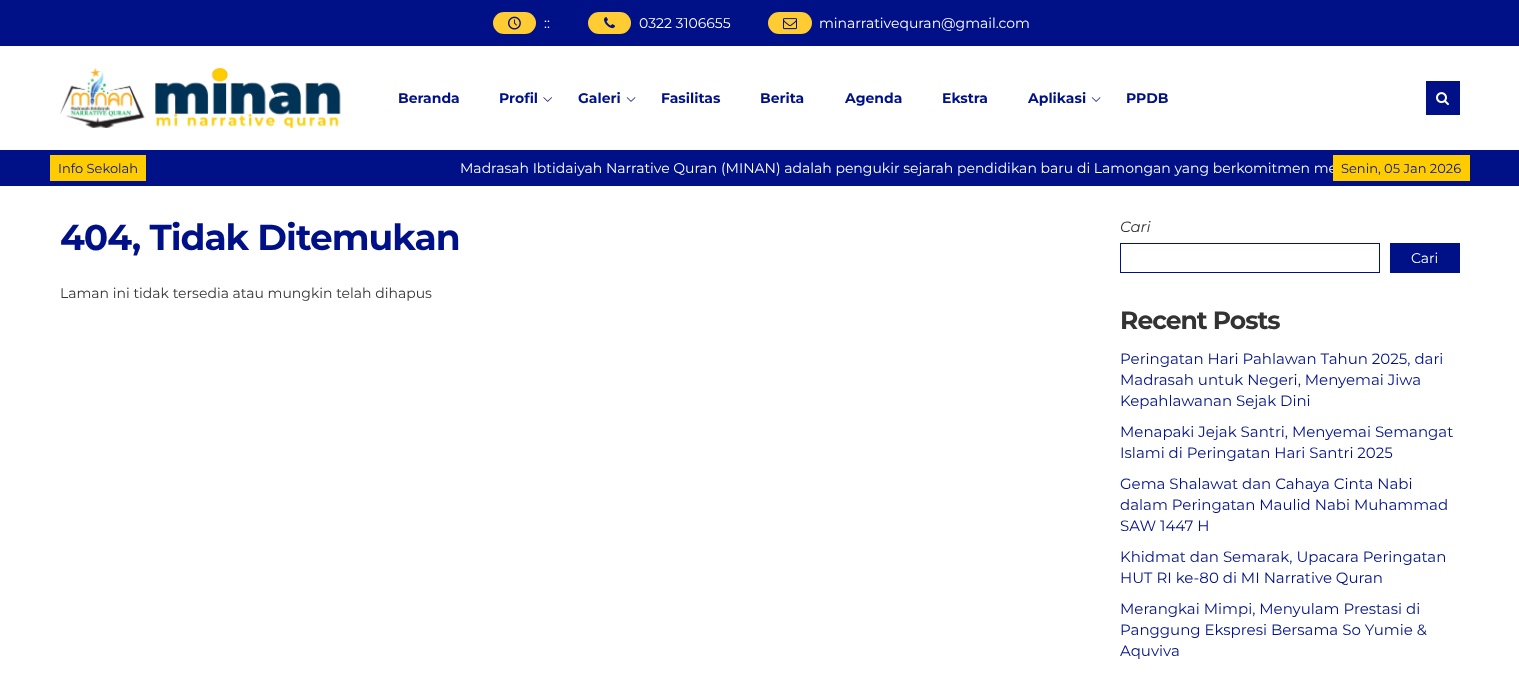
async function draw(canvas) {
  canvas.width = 1519;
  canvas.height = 680;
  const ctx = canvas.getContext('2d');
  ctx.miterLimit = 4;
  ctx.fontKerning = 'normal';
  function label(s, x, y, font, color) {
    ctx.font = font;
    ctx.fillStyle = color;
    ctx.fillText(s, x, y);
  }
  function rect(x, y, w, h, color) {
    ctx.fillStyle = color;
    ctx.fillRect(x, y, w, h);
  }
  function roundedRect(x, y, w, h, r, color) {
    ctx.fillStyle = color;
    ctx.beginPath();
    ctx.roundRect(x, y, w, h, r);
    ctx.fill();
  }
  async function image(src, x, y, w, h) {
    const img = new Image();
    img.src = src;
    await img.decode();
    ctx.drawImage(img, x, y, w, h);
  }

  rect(0, 0, 1519, 680, '#fff');
  rect(0, 0, 1519, 46, '#018');
  roundedRect(493, 12, 43, 22, 11, '#fc3');
  await image('assets/img1.png', 508, 16, 13, 14);
  label('::', 544, 28, '14px Montserrat', '#fff');
  roundedRect(588, 12, 43, 22, 11, '#fc3');
  await image('assets/img2.png', 604, 17, 11, 12);
  label('0322 3106655', 639, 28, '14px Montserrat', '#fff');
  roundedRect(768, 12, 44, 22, 11, '#fc3');
  await image('assets/img3.png', 783, 18, 14, 12);
  label('minarrativequran@gmail.com', 819, 28, '14px Montserrat', '#fff');
  await image('assets/img4.png', 60, 68, 281, 60);
  label('Beranda', 398, 103, 'bold 14px Montserrat', '#018');
  label('Profil', 499, 103, 'bold 14px Montserrat', '#018');
  await image('assets/img5.png', 543, 97, 9, 5);
  label('Galeri', 578, 103, 'bold 14px Montserrat', '#018');
  await image('assets/img6.png', 626, 97, 10, 5);
  label('Fasilitas', 661, 103, 'bold 14px Montserrat', '#018');
  label('Berita', 760, 103, 'bold 14px Montserrat', '#018');
  label('Agenda', 845, 103, 'bold 14px Montserrat', '#018');
  label('Ekstra', 942, 103, 'bold 14px Montserrat', '#018');
  label('Aplikasi', 1028, 103, 'bold 14px Montserrat', '#018');
  await image('assets/img7.png', 1091, 97, 10, 5);
  label('PPDB', 1126, 103, 'bold 14px Montserrat', '#018');
  rect(1426, 81, 34, 34, '#018');
  await image('assets/img8.png', 1436, 92, 13, 14);
  rect(0, 150, 1519, 36, '#018');
  rect(50, 155, 96, 26, '#fc0');
  label('Info Sekolah', 58, 173, '13px Montserrat', '#018');
  label('Madrasah Ibtidaiyah Narrative Quran (MINAN) adalah pengukir sejarah pendidikan baru di Lamongan yang berkomitmen me', 460, 173, '14px Montserrat', '#fff');
  rect(1333, 155, 137, 26, '#fc0');
  label('Senin, 05 Jan 2026', 1341, 173, '13px Montserrat', '#018');
  ctx.letterSpacing = '-1px';
  label('404, Tidak Ditemukan', 60, 250, 'bold 36px Montserrat', '#018');
  ctx.letterSpacing = '0px';
  label('Laman ini tidak tersedia atau mungkin telah dihapus', 60, 298, '14px Montserrat', '#333');
  label('Cari', 1120, 232, 'italic 15px Montserrat', '#333');
  ctx.strokeStyle = '#018';
  ctx.strokeRect(1120.5, 243.5, 259, 29);
  rect(1390, 243, 70, 30, '#018');
  label('Cari', 1411, 263, '14px Montserrat', '#fff');
  ctx.letterSpacing = '-1px';
  label('Recent Posts', 1120, 329, 'bold 25px Montserrat', '#333');
  ctx.letterSpacing = '0px';
  label('Peringatan Hari Pahlawan Tahun 2025, dari', 1120, 364, '15px Montserrat', '#018');
  label('Madrasah untuk Negeri, Menyemai Jiwa', 1120, 385, '15px Montserrat', '#018');
  label('Kepahlawanan Sejak Dini', 1120, 406, '15px Montserrat', '#018');
  label('Menapaki Jejak Santri, Menyemai Semangat', 1120, 437, '15px Montserrat', '#018');
  label('Islami di Peringatan Hari Santri 2025', 1120, 458, '15px Montserrat', '#018');
  label('Gema Shalawat dan Cahaya Cinta Nabi', 1120, 489, '15px Montserrat', '#018');
  label('dalam Peringatan Maulid Nabi Muhammad', 1120, 510, '15px Montserrat', '#018');
  label('SAW 1447 H', 1120, 531, '15px Montserrat', '#018');
  label('Khidmat dan Semarak, Upacara Peringatan', 1120, 562, '15px Montserrat', '#018');
  label('HUT RI ke-80 di MI Narrative Quran', 1120, 583, '15px Montserrat', '#018');
  label('Merangkai Mimpi, Menyulam Prestasi di', 1120, 614, '15px Montserrat', '#018');
  label('Panggung Ekspresi Bersama So Yumie &', 1120, 635, '15px Montserrat', '#018');
  label('Aquviva', 1120, 656, '15px Montserrat', '#018');
}

draw(document.querySelector('canvas'));
